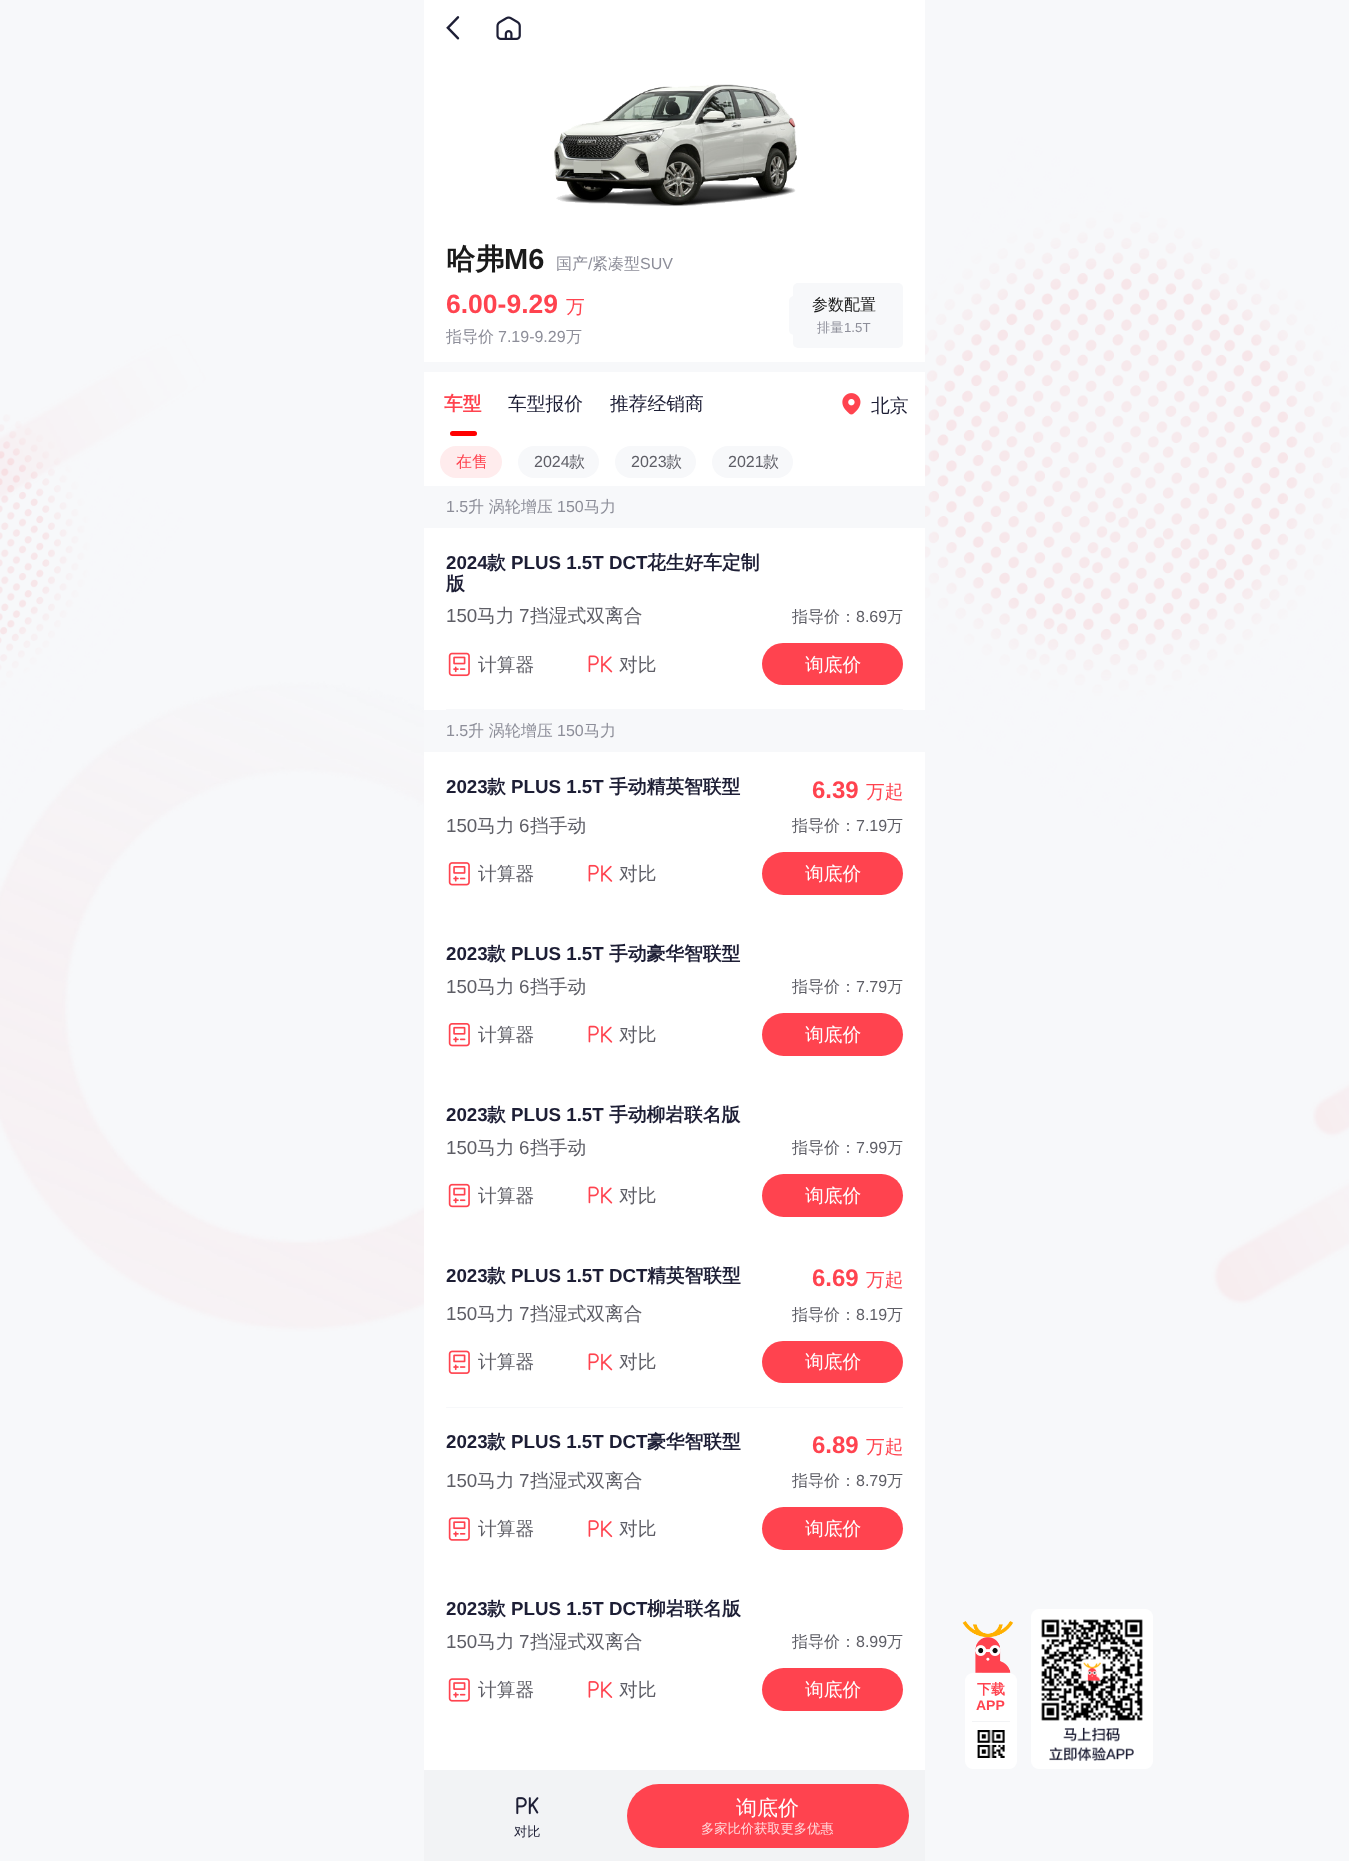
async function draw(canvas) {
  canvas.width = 1349;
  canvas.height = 1861;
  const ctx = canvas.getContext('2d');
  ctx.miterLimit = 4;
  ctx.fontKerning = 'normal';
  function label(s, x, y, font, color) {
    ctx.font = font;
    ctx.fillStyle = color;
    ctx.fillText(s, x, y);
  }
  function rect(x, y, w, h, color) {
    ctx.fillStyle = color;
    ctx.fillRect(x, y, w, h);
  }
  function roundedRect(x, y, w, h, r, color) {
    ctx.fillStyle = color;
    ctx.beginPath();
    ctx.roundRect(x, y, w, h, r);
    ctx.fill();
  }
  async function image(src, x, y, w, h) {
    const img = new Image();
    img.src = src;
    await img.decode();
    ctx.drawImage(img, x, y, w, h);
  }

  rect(0, 0, 1349, 1861, '#fff');
  await image('assets/img1.png', 0, 0, 1349, 1861);
  rect(424, 0, 501, 1770, '#fff');
  await image('assets/img2.png', 446, 16, 14, 24);
  await image('assets/img3.png', 496, 16, 25, 24);
  rect(424, 362, 501, 10, '#f7f8fa');
  await image('assets/img4.png', 554, 84, 243, 123);
  label('哈弗', 446, 269, 'bold 29px WenQuanYi Zen Hei', '#1a1a1a');
  label('M6', 504, 269, 'bold 29px Liberation Sans', '#1a1a1a');
  label('国产', 556, 269, '500 16px WenQuanYi Zen Hei', '#8d8e99');
  label('/', 588, 269, '16px Liberation Sans', '#8d8e99');
  label('紧凑型', 592, 269, '500 16px WenQuanYi Zen Hei', '#8d8e99');
  label('SUV', 640, 269, '16px Liberation Sans', '#8d8e99');
  label('6.00-9.29', 446, 313, 'bold 26.5px Liberation Sans', '#ff434f');
  label('万', 566, 313, '500 18.75px WenQuanYi Zen Hei', '#ff434f');
  label('指导价', 446, 342, '500 16px WenQuanYi Zen Hei', '#8d8e99');
  label('7.19-9.29', 498, 342, '16px Liberation Sans', '#8d8e99');
  label('万', 566, 342, '500 16px WenQuanYi Zen Hei', '#8d8e99');
  roundedRect(793, 283, 110, 65, 5, '#f7f8fa');
  roundedRect(789, 296, 110, 39, 5, '#f7f8fa');
  label('参数配置', 812, 310, '500 16px WenQuanYi Zen Hei', '#1a1a1a');
  label('排量', 817, 332, '500 13.25px WenQuanYi Zen Hei', '#8d8e99');
  label('1.5T', 844, 332, '13.25px Liberation Sans', '#8d8e99');
  label('车型', 444, 410, 'bold 18.75px WenQuanYi Zen Hei', '#ff434f');
  roundedRect(450, 431, 27, 5, 2.5, '#f00');
  label('车型报价', 508, 410, '500 18.75px WenQuanYi Zen Hei', '#1d1e35');
  label('推荐经销商', 610, 410, '500 18.75px WenQuanYi Zen Hei', '#1d1e35');
  await image('assets/img5.png', 842, 393, 19, 22);
  label('北京', 871, 412, '500 18.75px WenQuanYi Zen Hei', '#1d1e35');
  roundedRect(440, 446, 62, 32, 16, '#ffeced');
  label('在售', 456, 467, '500 16px WenQuanYi Zen Hei', '#ff434f');
  roundedRect(518, 446, 81, 32, 16, '#f7f8fa');
  label('2024', 534, 467, '16px Liberation Sans', '#5e5e66');
  label('款', 569, 467, '500 16px WenQuanYi Zen Hei', '#5e5e66');
  roundedRect(615, 446, 81, 32, 16, '#f7f8fa');
  label('2023', 631, 467, '16px Liberation Sans', '#5e5e66');
  label('款', 666, 467, '500 16px WenQuanYi Zen Hei', '#5e5e66');
  roundedRect(712, 446, 81, 32, 16, '#f7f8fa');
  label('2021', 728, 467, '16px Liberation Sans', '#5e5e66');
  label('款', 763, 467, '500 16px WenQuanYi Zen Hei', '#5e5e66');
  rect(424, 486, 501, 42, '#f7f8fa');
  label('1.5', 446, 512, '16px Liberation Sans', '#8d8e99');
  label('升 涡轮增压', 468, 512, '500 16px WenQuanYi Zen Hei', '#8d8e99');
  label('150', 557, 512, '16px Liberation Sans', '#8d8e99');
  label('马力', 584, 512, '500 16px WenQuanYi Zen Hei', '#8d8e99');
  roundedRect(446, 709, 457, 1, 0.5, '#f7f8fa');
  label('2024', 446, 569, 'bold 18.75px Liberation Sans', '#1d1e35');
  label('款', 487, 569, 'bold 18.75px WenQuanYi Zen Hei', '#1d1e35');
  label('PLUS 1.5T DCT', 511, 569, 'bold 18.75px Liberation Sans', '#1d1e35');
  label('花生好车定制', 647, 569, 'bold 18.75px WenQuanYi Zen Hei', '#1d1e35');
  label('版', 446, 590, 'bold 18.75px WenQuanYi Zen Hei', '#1d1e35');
  label('150', 446, 622, '18.75px Liberation Sans', '#5e5e66');
  label('马力', 477, 622, '500 18.75px WenQuanYi Zen Hei', '#5e5e66');
  label('7', 519, 622, '18.75px Liberation Sans', '#5e5e66');
  label('挡湿式双离合', 530, 622, '500 18.75px WenQuanYi Zen Hei', '#5e5e66');
  label('指导价：', 792, 622, '500 16px WenQuanYi Zen Hei', '#5e5e66');
  label('8.69', 856, 622, '16px Liberation Sans', '#5e5e66');
  label('万', 887, 622, '500 16px WenQuanYi Zen Hei', '#5e5e66');
  await image('assets/img6.png', 448, 652, 22, 25);
  label('计算器', 478, 671, '500 18.75px WenQuanYi Zen Hei', '#5e5e66');
  await image('assets/img7.png', 588, 655, 25, 18);
  label('对比', 619, 671, '500 18.75px WenQuanYi Zen Hei', '#5e5e66');
  roundedRect(762, 643, 141, 42, 21, '#ff434f');
  label('询底价', 805, 671, '500 18.75px WenQuanYi Zen Hei', '#fff');
  rect(424, 710, 501, 42, '#f7f8fa');
  label('1.5', 446, 736, '16px Liberation Sans', '#8d8e99');
  label('升 涡轮增压', 468, 736, '500 16px WenQuanYi Zen Hei', '#8d8e99');
  label('150', 557, 736, '16px Liberation Sans', '#8d8e99');
  label('马力', 584, 736, '500 16px WenQuanYi Zen Hei', '#8d8e99');
  label('2023', 446, 793, 'bold 18.75px Liberation Sans', '#1d1e35');
  label('款', 487, 793, 'bold 18.75px WenQuanYi Zen Hei', '#1d1e35');
  label('PLUS 1.5T', 511, 793, 'bold 18.75px Liberation Sans', '#1d1e35');
  label('手动精英智联型', 609, 793, 'bold 18.75px WenQuanYi Zen Hei', '#1d1e35');
  label('6.39', 812, 798, 'bold 24px Liberation Sans', '#ff434f');
  label('万起', 866, 798, '500 18.75px WenQuanYi Zen Hei', '#ff434f');
  label('150', 446, 832, '18.75px Liberation Sans', '#5e5e66');
  label('马力', 477, 832, '500 18.75px WenQuanYi Zen Hei', '#5e5e66');
  label('6', 519, 832, '18.75px Liberation Sans', '#5e5e66');
  label('挡手动', 530, 832, '500 18.75px WenQuanYi Zen Hei', '#5e5e66');
  label('指导价：', 792, 831, '500 16px WenQuanYi Zen Hei', '#5e5e66');
  label('7.19', 856, 831, '16px Liberation Sans', '#5e5e66');
  label('万', 887, 831, '500 16px WenQuanYi Zen Hei', '#5e5e66');
  await image('assets/img8.png', 448, 862, 22, 24);
  label('计算器', 478, 880, '500 18.75px WenQuanYi Zen Hei', '#5e5e66');
  await image('assets/img9.png', 588, 864, 25, 18);
  label('对比', 619, 880, '500 18.75px WenQuanYi Zen Hei', '#5e5e66');
  roundedRect(762, 852, 141, 43, 21.5, '#ff434f');
  label('询底价', 805, 880, '500 18.75px WenQuanYi Zen Hei', '#fff');
  label('2023', 446, 960, 'bold 18.75px Liberation Sans', '#1d1e35');
  label('款', 487, 960, 'bold 18.75px WenQuanYi Zen Hei', '#1d1e35');
  label('PLUS 1.5T', 511, 960, 'bold 18.75px Liberation Sans', '#1d1e35');
  label('手动豪华智联型', 609, 960, 'bold 18.75px WenQuanYi Zen Hei', '#1d1e35');
  label('150', 446, 993, '18.75px Liberation Sans', '#5e5e66');
  label('马力', 477, 993, '500 18.75px WenQuanYi Zen Hei', '#5e5e66');
  label('6', 519, 993, '18.75px Liberation Sans', '#5e5e66');
  label('挡手动', 530, 993, '500 18.75px WenQuanYi Zen Hei', '#5e5e66');
  label('指导价：', 792, 992, '500 16px WenQuanYi Zen Hei', '#5e5e66');
  label('7.79', 856, 992, '16px Liberation Sans', '#5e5e66');
  label('万', 887, 992, '500 16px WenQuanYi Zen Hei', '#5e5e66');
  await image('assets/img10.png', 448, 1023, 22, 24);
  label('计算器', 478, 1041, '500 18.75px WenQuanYi Zen Hei', '#5e5e66');
  await image('assets/img11.png', 588, 1025, 25, 18);
  label('对比', 619, 1041, '500 18.75px WenQuanYi Zen Hei', '#5e5e66');
  roundedRect(762, 1013, 141, 43, 21.5, '#ff434f');
  label('询底价', 805, 1041, '500 18.75px WenQuanYi Zen Hei', '#fff');
  label('2023', 446, 1121, 'bold 18.75px Liberation Sans', '#1d1e35');
  label('款', 487, 1121, 'bold 18.75px WenQuanYi Zen Hei', '#1d1e35');
  label('PLUS 1.5T', 511, 1121, 'bold 18.75px Liberation Sans', '#1d1e35');
  label('手动柳岩联名版', 609, 1121, 'bold 18.75px WenQuanYi Zen Hei', '#1d1e35');
  label('150', 446, 1154, '18.75px Liberation Sans', '#5e5e66');
  label('马力', 477, 1154, '500 18.75px WenQuanYi Zen Hei', '#5e5e66');
  label('6', 519, 1154, '18.75px Liberation Sans', '#5e5e66');
  label('挡手动', 530, 1154, '500 18.75px WenQuanYi Zen Hei', '#5e5e66');
  label('指导价：', 792, 1153, '500 16px WenQuanYi Zen Hei', '#5e5e66');
  label('7.99', 856, 1153, '16px Liberation Sans', '#5e5e66');
  label('万', 887, 1153, '500 16px WenQuanYi Zen Hei', '#5e5e66');
  await image('assets/img12.png', 448, 1183, 22, 25);
  label('计算器', 478, 1202, '500 18.75px WenQuanYi Zen Hei', '#5e5e66');
  await image('assets/img13.png', 588, 1186, 25, 18);
  label('对比', 619, 1202, '500 18.75px WenQuanYi Zen Hei', '#5e5e66');
  roundedRect(762, 1174, 141, 43, 21.5, '#ff434f');
  label('询底价', 805, 1202, '500 18.75px WenQuanYi Zen Hei', '#fff');
  roundedRect(446, 1407, 457, 1, 0.5, '#f7f8fa');
  label('2023', 446, 1282, 'bold 18.75px Liberation Sans', '#1d1e35');
  label('款', 487, 1282, 'bold 18.75px WenQuanYi Zen Hei', '#1d1e35');
  label('PLUS 1.5T DCT', 511, 1282, 'bold 18.75px Liberation Sans', '#1d1e35');
  label('精英智联型', 647, 1282, 'bold 18.75px WenQuanYi Zen Hei', '#1d1e35');
  label('6.69', 812, 1286, 'bold 24px Liberation Sans', '#ff434f');
  label('万起', 866, 1286, '500 18.75px WenQuanYi Zen Hei', '#ff434f');
  label('150', 446, 1320, '18.75px Liberation Sans', '#5e5e66');
  label('马力', 477, 1320, '500 18.75px WenQuanYi Zen Hei', '#5e5e66');
  label('7', 519, 1320, '18.75px Liberation Sans', '#5e5e66');
  label('挡湿式双离合', 530, 1320, '500 18.75px WenQuanYi Zen Hei', '#5e5e66');
  label('指导价：', 792, 1320, '500 16px WenQuanYi Zen Hei', '#5e5e66');
  label('8.19', 856, 1320, '16px Liberation Sans', '#5e5e66');
  label('万', 887, 1320, '500 16px WenQuanYi Zen Hei', '#5e5e66');
  await image('assets/img14.png', 448, 1350, 22, 24);
  label('计算器', 478, 1368, '500 18.75px WenQuanYi Zen Hei', '#5e5e66');
  await image('assets/img15.png', 588, 1353, 25, 18);
  label('对比', 619, 1368, '500 18.75px WenQuanYi Zen Hei', '#5e5e66');
  roundedRect(762, 1341, 141, 42, 21, '#ff434f');
  label('询底价', 805, 1368, '500 18.75px WenQuanYi Zen Hei', '#fff');
  label('2023', 446, 1448, 'bold 18.75px Liberation Sans', '#1d1e35');
  label('款', 487, 1448, 'bold 18.75px WenQuanYi Zen Hei', '#1d1e35');
  label('PLUS 1.5T DCT', 511, 1448, 'bold 18.75px Liberation Sans', '#1d1e35');
  label('豪华智联型', 647, 1448, 'bold 18.75px WenQuanYi Zen Hei', '#1d1e35');
  label('6.89', 812, 1453, 'bold 24px Liberation Sans', '#ff434f');
  label('万起', 866, 1453, '500 18.75px WenQuanYi Zen Hei', '#ff434f');
  label('150', 446, 1487, '18.75px Liberation Sans', '#5e5e66');
  label('马力', 477, 1487, '500 18.75px WenQuanYi Zen Hei', '#5e5e66');
  label('7', 519, 1487, '18.75px Liberation Sans', '#5e5e66');
  label('挡湿式双离合', 530, 1487, '500 18.75px WenQuanYi Zen Hei', '#5e5e66');
  label('指导价：', 792, 1486, '500 16px WenQuanYi Zen Hei', '#5e5e66');
  label('8.79', 856, 1486, '16px Liberation Sans', '#5e5e66');
  label('万', 887, 1486, '500 16px WenQuanYi Zen Hei', '#5e5e66');
  await image('assets/img16.png', 448, 1517, 22, 24);
  label('计算器', 478, 1535, '500 18.75px WenQuanYi Zen Hei', '#5e5e66');
  await image('assets/img17.png', 588, 1520, 25, 18);
  label('对比', 619, 1535, '500 18.75px WenQuanYi Zen Hei', '#5e5e66');
  roundedRect(762, 1507, 141, 43, 21.5, '#ff434f');
  label('询底价', 805, 1535, '500 18.75px WenQuanYi Zen Hei', '#fff');
  label('2023', 446, 1615, 'bold 18.75px Liberation Sans', '#1d1e35');
  label('款', 487, 1615, 'bold 18.75px WenQuanYi Zen Hei', '#1d1e35');
  label('PLUS 1.5T DCT', 511, 1615, 'bold 18.75px Liberation Sans', '#1d1e35');
  label('柳岩联名版', 647, 1615, 'bold 18.75px WenQuanYi Zen Hei', '#1d1e35');
  label('150', 446, 1648, '18.75px Liberation Sans', '#5e5e66');
  label('马力', 477, 1648, '500 18.75px WenQuanYi Zen Hei', '#5e5e66');
  label('7', 519, 1648, '18.75px Liberation Sans', '#5e5e66');
  label('挡湿式双离合', 530, 1648, '500 18.75px WenQuanYi Zen Hei', '#5e5e66');
  label('指导价：', 792, 1647, '500 16px WenQuanYi Zen Hei', '#5e5e66');
  label('8.99', 856, 1647, '16px Liberation Sans', '#5e5e66');
  label('万', 887, 1647, '500 16px WenQuanYi Zen Hei', '#5e5e66');
  await image('assets/img18.png', 448, 1678, 22, 24);
  label('计算器', 478, 1696, '500 18.75px WenQuanYi Zen Hei', '#5e5e66');
  await image('assets/img19.png', 588, 1681, 25, 17);
  label('对比', 619, 1696, '500 18.75px WenQuanYi Zen Hei', '#5e5e66');
  roundedRect(762, 1668, 141, 43, 21.5, '#ff434f');
  label('询底价', 805, 1696, '500 18.75px WenQuanYi Zen Hei', '#fff');
  rect(424, 1770, 501, 91, '#f2f3f5');
  await image('assets/img20.png', 516, 1797, 23, 18);
  label('对比', 514, 1836, '500 13.25px WenQuanYi Zen Hei', '#1d1e35');
  roundedRect(627, 1784, 282, 64, 32, '#ff434f');
  label('询底价', 736, 1815, '500 21px WenQuanYi Zen Hei', '#fff');
  label('多家比价获取更多优惠', 701, 1833, '500 13.25px WenQuanYi Zen Hei', '#ffd9dc');
  await image('assets/img21.png', 962, 1621, 52, 52);
  roundedRect(1031, 1609, 122, 160, 8, '#fff');
  await image('assets/img22.png', 1041, 1619, 102, 102);
  await image('assets/img23.png', 1049, 1727, 85, 34);
  roundedRect(965, 1673, 52, 96, 8, '#fff');
  rect(972, 1721, 38, 1, '#f2f3f5');
  label('下载', 977, 1694, 'bold 14px WenQuanYi Zen Hei', '#ff434f');
  label('APP', 976, 1710, 'bold 14px Liberation Sans', '#ff434f');
  await image('assets/img24.png', 977, 1730, 28, 28);
}

draw(document.querySelector('canvas'));
